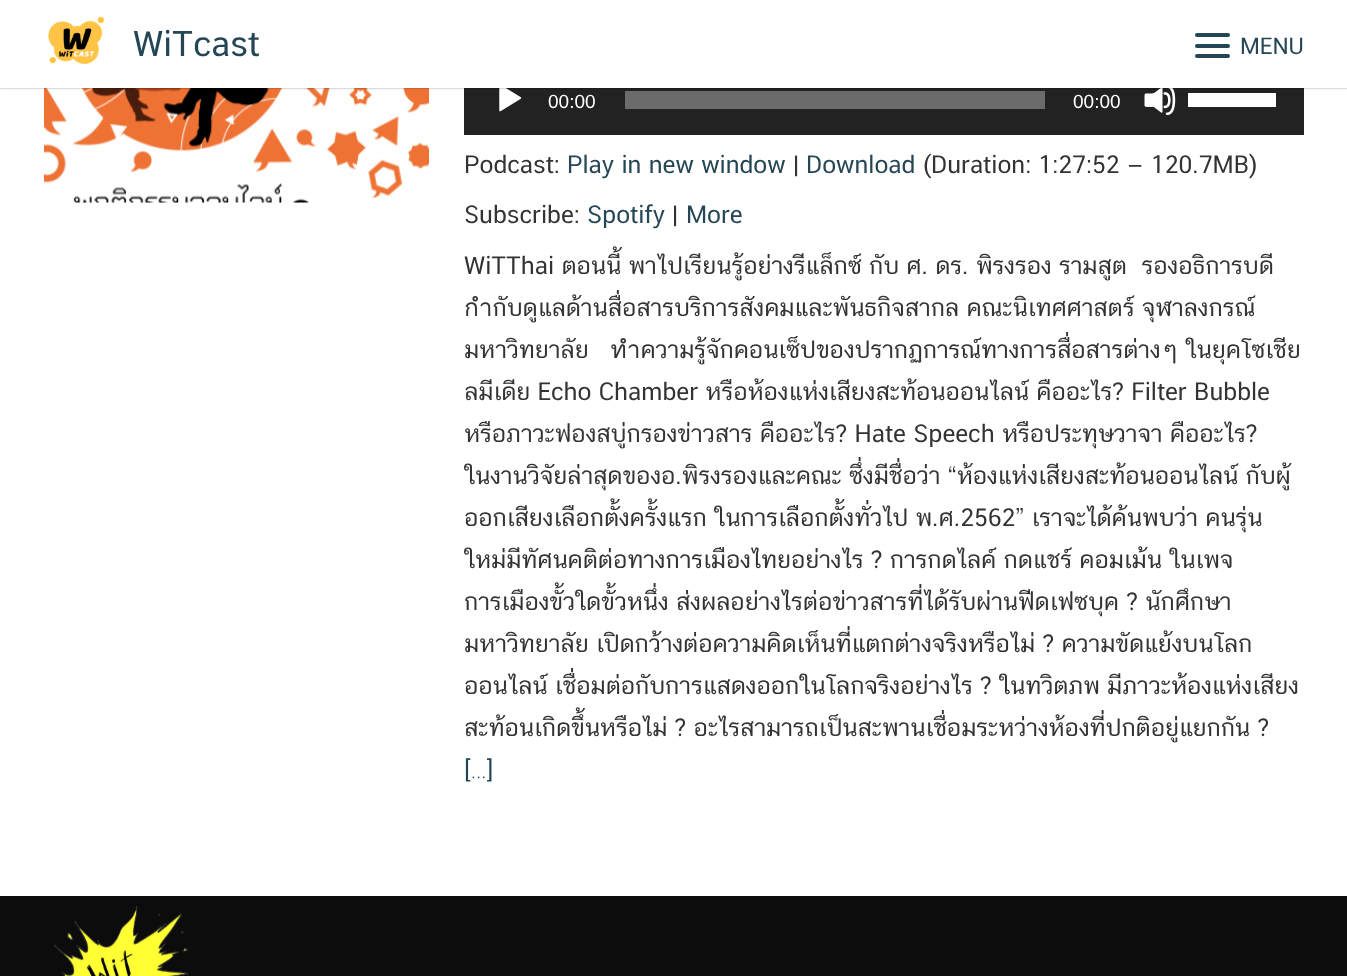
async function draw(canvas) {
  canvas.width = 1347;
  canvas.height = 976;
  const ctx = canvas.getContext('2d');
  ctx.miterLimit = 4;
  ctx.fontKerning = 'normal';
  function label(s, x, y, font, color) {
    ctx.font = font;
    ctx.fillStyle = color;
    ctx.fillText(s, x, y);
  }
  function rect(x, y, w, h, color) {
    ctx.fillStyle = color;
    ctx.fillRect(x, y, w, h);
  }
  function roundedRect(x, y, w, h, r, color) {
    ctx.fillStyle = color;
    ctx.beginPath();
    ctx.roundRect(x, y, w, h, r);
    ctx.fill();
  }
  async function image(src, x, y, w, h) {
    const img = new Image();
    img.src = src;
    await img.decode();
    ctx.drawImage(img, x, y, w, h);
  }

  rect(0, 0, 1347, 976, '#fff');
  await image('assets/img2.png', 44, 88, 385, 115);
  rect(464, 88, 840, 47, '#222');
  await image('assets/img3.png', 499, 88, 23, 24);
  rect(625, 91, 420, 18, '#6b6b6b');
  await image('assets/img4.png', 1144, 88, 32, 27);
  ctx.fillStyle = '#00000066';
  ctx.filter = 'blur(1px)';
  ctx.beginPath();
  ctx.rect(0, 0, 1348, 88);
  ctx.fill();
  ctx.filter = 'none';
  rect(0, 0, 1347, 88, '#fff');
  await image('assets/img1.png', 48, 16, 57, 49);
  label('WiTcast', 133, 56, '35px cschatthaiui', '#254655');
  roundedRect(1195, 33, 35, 4, 2, '#254655');
  roundedRect(1195, 44, 35, 4, 2, '#254655');
  roundedRect(1195, 54, 35, 4, 2, '#254655');
  label('MENU', 1240, 54, '23px cschatthaiui', '#254655');
  label('00:00', 548, 108, '19px Liberation Sans', '#fff');
  label('00:00', 1073, 108, '19px Liberation Sans', '#fff');
  rect(1188, 93, 88, 14, '#fff');
  label('Podcast:', 464, 173, '24.5px cschatthaiui', '#333');
  label('Play in new window', 567, 173, '24.5px cschatthaiui', '#254655');
  label('|', 793, 173, '24.5px cschatthaiui', '#333');
  label('Download', 806, 173, '24.5px cschatthaiui', '#254655');
  label('(Duration: 1:27:52 — 120.7MB)', 923, 173, '24.5px cschatthaiui', '#333');
  label('Subscribe:', 464, 223, '24.5px cschatthaiui', '#333');
  label('Spotify', 587, 223, '24.5px cschatthaiui', '#254655');
  label('|', 672, 223, '24.5px cschatthaiui', '#333');
  label('More', 686, 223, '24.5px cschatthaiui', '#254655');
  label('WiTThai ตอนนี้ พาไปเรียนรู้อย่างรีแล็กซ์ กับ ศ. ดร. พิรงรอง รามสูต  รองอธิการบดี', 464, 274, '24.5px cschatthaiui', '#333');
  label('กำกับดูแลด้านสื่อสารบริการสังคมและพันธกิจสากล คณะนิเทศศาสตร์ จุฬาลงกรณ์', 464, 316, '24.5px cschatthaiui', '#333');
  label('มหาวิทยาลัย   ทำความรู้จักคอนเซ็ปของปรากฏการณ์ทางการสื่อสารต่างๆ ในยุคโซเชีย', 464, 358, '24.5px cschatthaiui', '#333');
  label('ลมีเดีย Echo Chamber หรือห้องแห่งเสียงสะท้อนออนไลน์ คืออะไร? Filter Bubble', 464, 400, '24.5px cschatthaiui', '#333');
  label('หรือภาวะฟองสบู่กรองข่าวสาร คืออะไร? Hate Speech หรือประทุษวาจา คืออะไร?', 464, 442, '24.5px cschatthaiui', '#333');
  label('ในงานวิจัยล่าสุดของอ.พิรงรองและคณะ ซึ่งมีชื่อว่า “ห้องแห่งเสียงสะท้อนออนไลน์ กับผู้', 464, 484, '24.5px cschatthaiui', '#333');
  label('ออกเสียงเลือกตั้งครั้งแรก ในการเลือกตั้งทั่วไป พ.ศ.2562” เราจะได้ค้นพบว่า คนรุ่น', 464, 526, '24.5px cschatthaiui', '#333');
  label('ใหม่มีทัศนคติต่อทางการเมืองไทยอย่างไร ? การกดไลค์ กดแชร์ คอมเม้น ในเพจ', 464, 568, '24.5px cschatthaiui', '#333');
  label('การเมืองขั้วใดขั้วหนึ่ง ส่งผลอย่างไรต่อข่าวสารที่ได้รับผ่านฟีดเฟซบุค ? นักศึกษา', 464, 610, '24.5px cschatthaiui', '#333');
  label('มหาวิทยาลัย เปิดกว้างต่อความคิดเห็นที่แตกต่างจริงหรือไม่ ? ความขัดแย้งบนโลก', 464, 652, '24.5px cschatthaiui', '#333');
  label('ออนไลน์ เชื่อมต่อกับการแสดงออกในโลกจริงอย่างไร ? ในทวิตภพ มีภาวะห้องแห่งเสียง', 464, 694, '24.5px cschatthaiui', '#333');
  label('สะท้อนเกิดขึ้นหรือไม่ ? อะไรสามารถเป็นสะพานเชื่อมระหว่างห้องที่ปกติอยู่แยกกัน ?', 464, 736, '24.5px cschatthaiui', '#333');
  label('[…]', 464, 778, '24.5px cschatthaiui', '#254655');
  rect(0, 896, 1347, 80, '#0c0c0c');
  await image('assets/img5.png', 54, 905, 135, 71);
}

draw(document.querySelector('canvas'));
